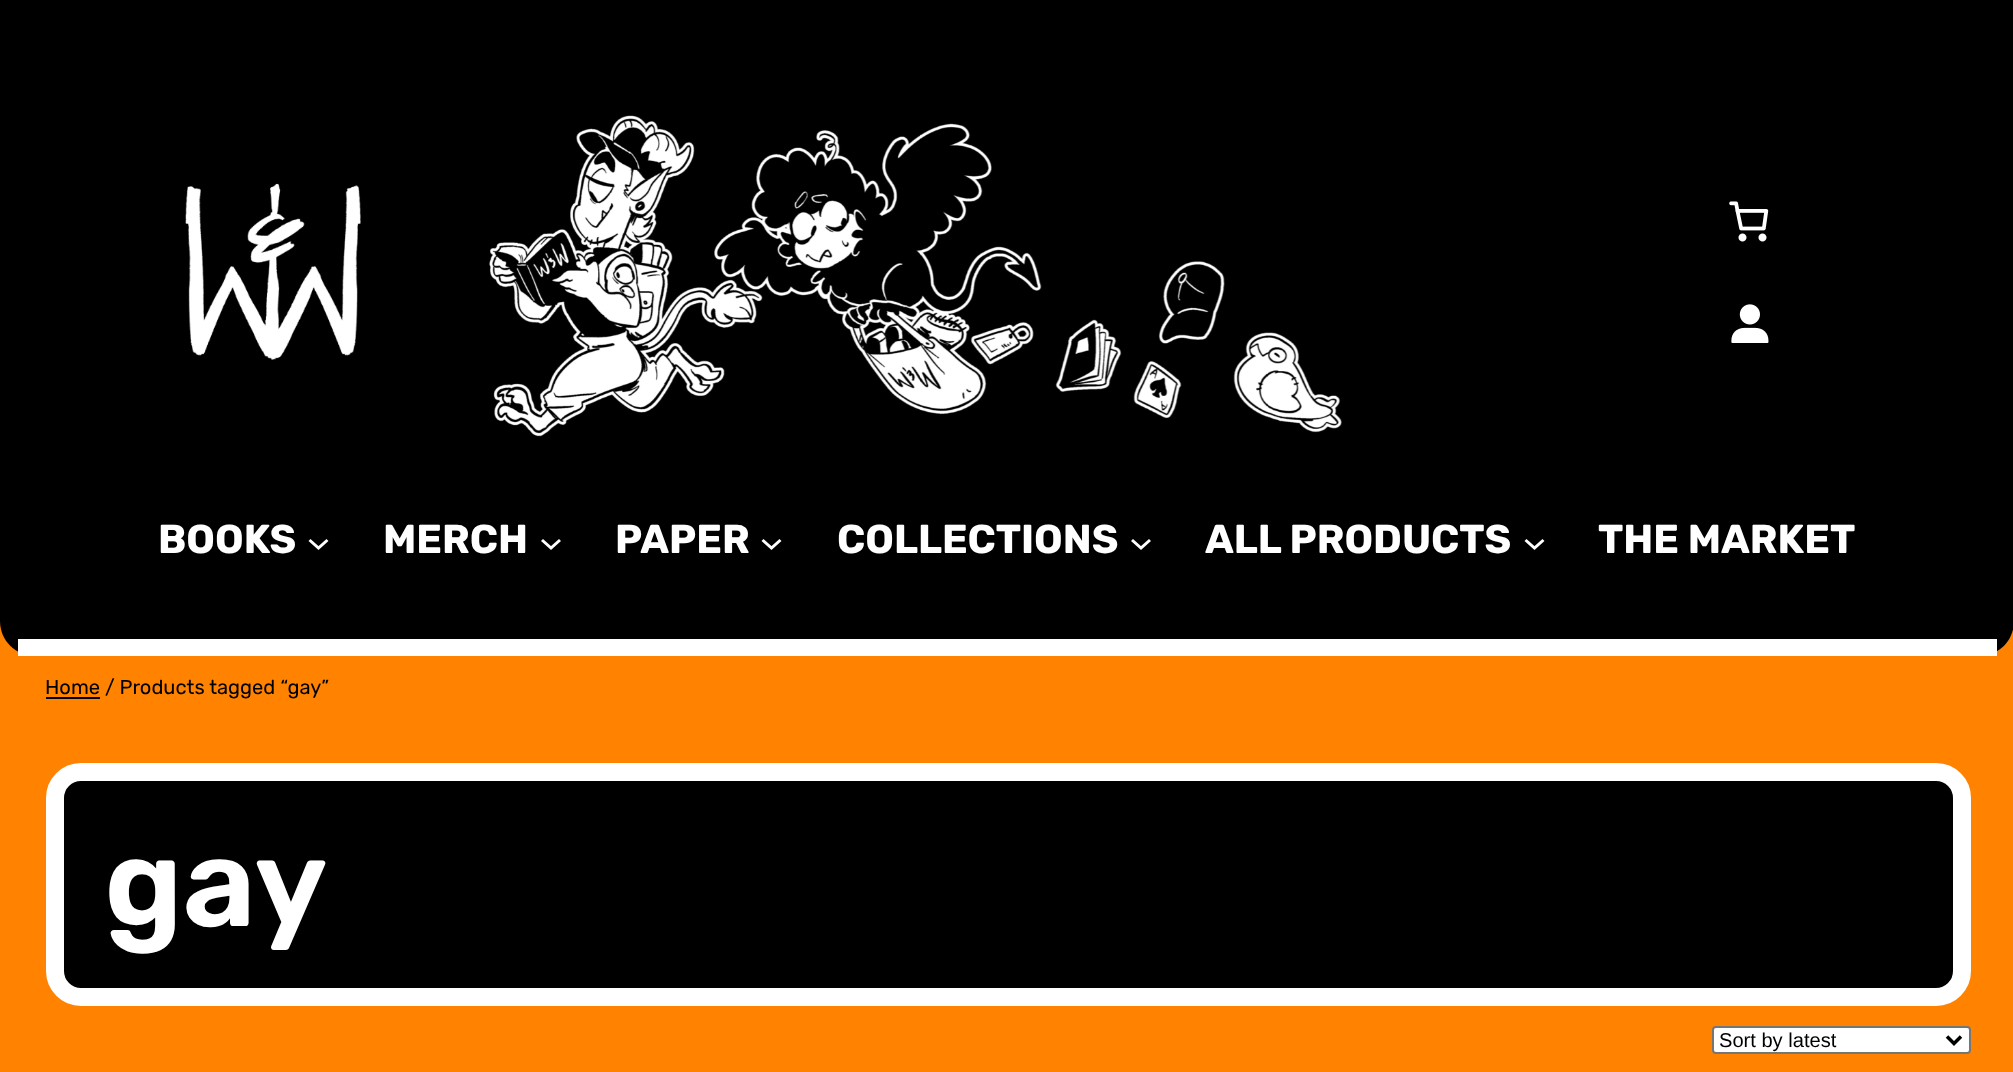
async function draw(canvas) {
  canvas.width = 2013;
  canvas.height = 1072;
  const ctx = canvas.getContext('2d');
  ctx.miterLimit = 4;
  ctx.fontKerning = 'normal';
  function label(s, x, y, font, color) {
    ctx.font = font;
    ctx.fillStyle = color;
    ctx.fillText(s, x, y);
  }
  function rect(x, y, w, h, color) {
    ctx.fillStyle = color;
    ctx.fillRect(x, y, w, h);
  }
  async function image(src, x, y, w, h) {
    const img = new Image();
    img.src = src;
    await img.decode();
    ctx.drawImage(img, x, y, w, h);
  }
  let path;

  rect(0, 0, 2013, 1072, '#ff8200');
  ctx.fillStyle = '#000';
  path = new Path2D('M0 0H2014V621C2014 640.5 1998.5 656 1979 656H35C15.5 656 0 640.5 0 621Z');
  ctx.fill(path);
  rect(18, 639, 1979, 17, '#fff');
  await image('assets/img1.png', 185, 183, 176, 177);
  await image('assets/img2.png', 489, 115, 853, 322);
  await image('assets/img3.png', 1729, 201, 40, 41);
  await image('assets/img4.png', 1731, 304, 38, 39);
  label('BOOKS', 158, 553, 'bold 40.25px Rubik', '#fff');
  path = new Path2D('M309.5 540L318.5 548L327.5 540');
  ctx.strokeStyle = '#fff';
  ctx.lineWidth = 3;
  ctx.stroke(path);
  label('MERCH', 383, 553, 'bold 40.25px Rubik', '#fff');
  path = new Path2D('M542 540L551 548L560 540');
  ctx.stroke(path);
  label('PAPER', 615, 553, 'bold 40.25px Rubik', '#fff');
  path = new Path2D('M762.5 540L771.5 548L780.5 540');
  ctx.stroke(path);
  label('COLLECTIONS', 837, 553, 'bold 40.25px Rubik', '#fff');
  path = new Path2D('M1132 540L1141 548L1150 540');
  ctx.stroke(path);
  label('ALL PRODUCTS', 1205, 553, 'bold 40.25px Rubik', '#fff');
  path = new Path2D('M1525.5 540L1534.5 548L1543.5 540');
  ctx.stroke(path);
  label('THE MARKET', 1598, 553, 'bold 40.25px Rubik', '#fff');
  rect(46, 697, 54, 2, '#000');
  label('Home / Products tagged “gay”', 45, 694, '20.1px Rubik', '#000');
  ctx.beginPath();
  ctx.roundRect(55, 772, 1907, 225, 26);
  ctx.fill();
  ctx.lineWidth = 18;
  ctx.stroke();
  label('gay', 104, 926, '600 126px Rubik', '#fff');
  ctx.beginPath();
  ctx.roundRect(1713, 1027, 257, 26, 3);
  ctx.fill();
  ctx.strokeStyle = '#767676';
  ctx.lineWidth = 2;
  ctx.stroke();
  path = new Path2D('M1947 1036.5L1954 1043.5L1961 1036.5');
  ctx.strokeStyle = '#000';
  ctx.lineWidth = 3.5;
  ctx.stroke(path);
  label('Sort by latest', 1719, 1047, '20.1px Liberation Sans', '#000');
}

draw(document.querySelector('canvas'));
